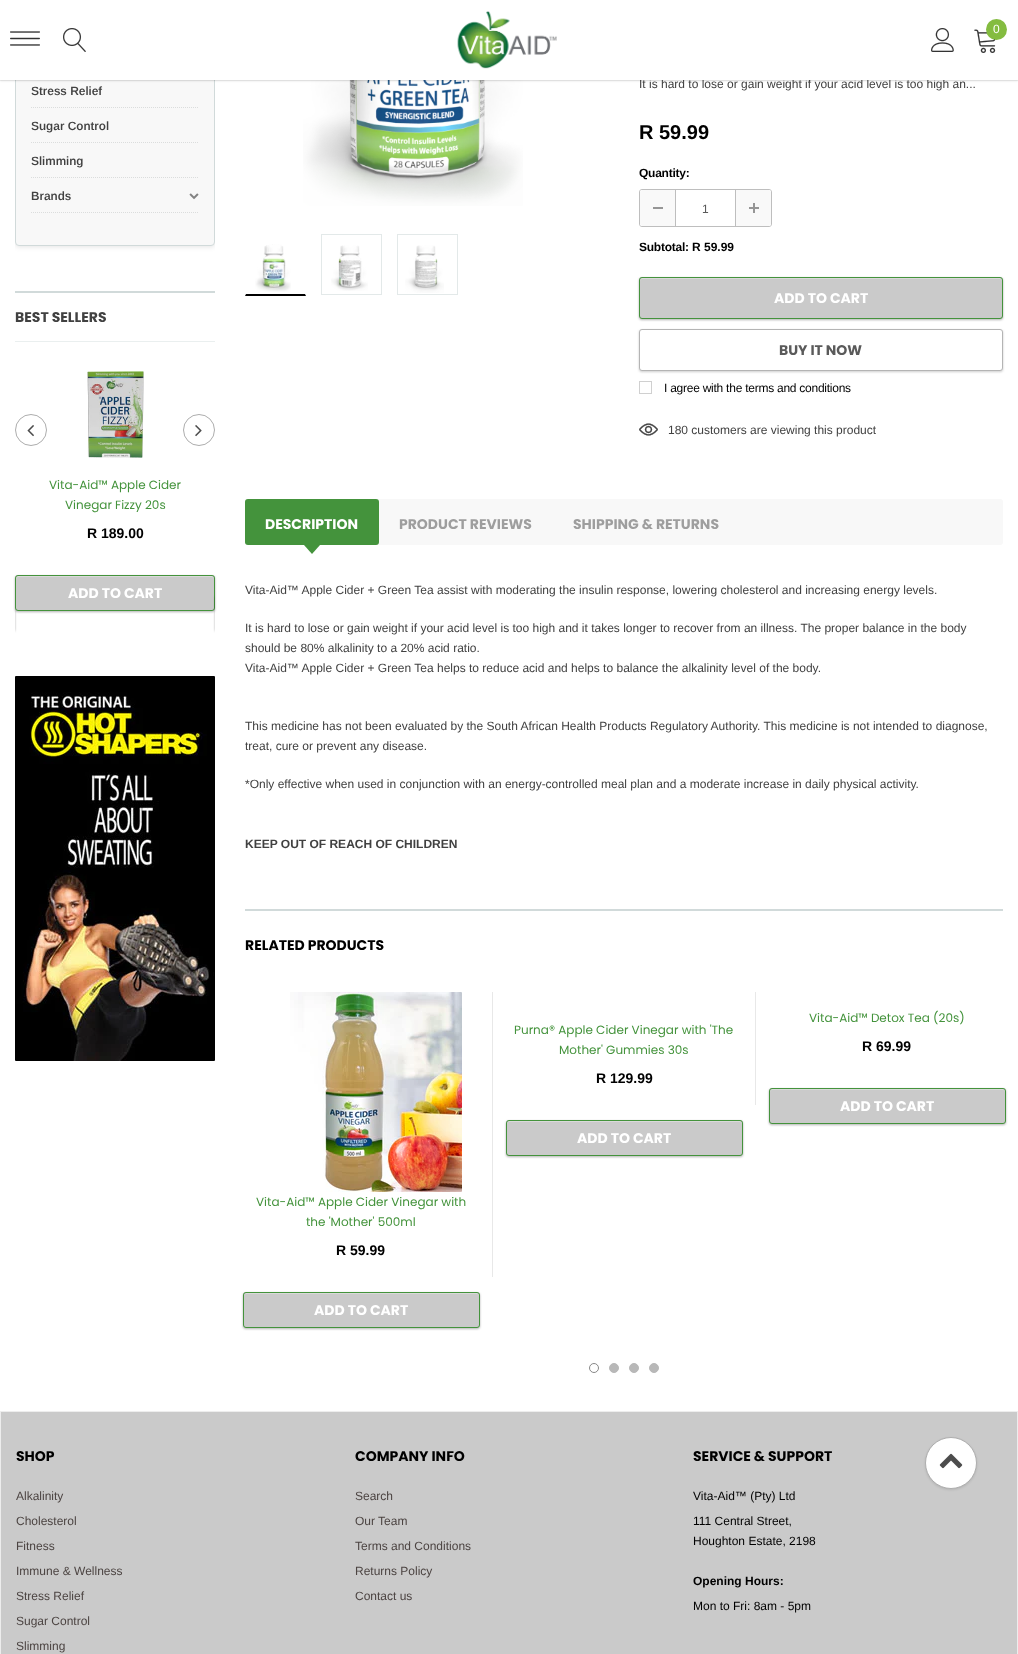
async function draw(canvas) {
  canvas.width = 1018;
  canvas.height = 1654;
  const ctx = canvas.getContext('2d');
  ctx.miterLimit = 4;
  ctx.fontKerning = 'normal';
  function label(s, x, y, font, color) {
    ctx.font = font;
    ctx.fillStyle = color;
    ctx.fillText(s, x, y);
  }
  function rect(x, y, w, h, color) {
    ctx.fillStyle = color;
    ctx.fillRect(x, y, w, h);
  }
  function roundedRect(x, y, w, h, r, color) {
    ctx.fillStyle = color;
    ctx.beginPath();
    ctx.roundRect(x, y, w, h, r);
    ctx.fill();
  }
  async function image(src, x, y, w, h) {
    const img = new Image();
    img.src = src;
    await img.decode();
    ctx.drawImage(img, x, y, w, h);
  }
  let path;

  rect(0, 0, 1018, 1654, '#fff');
  ctx.save();
  ctx.beginPath();
  ctx.rect(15, 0, 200, 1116);
  ctx.clip();
  ctx.fillStyle = '#0000001a';
  ctx.filter = 'blur(2.5px)';
  ctx.beginPath();
  ctx.roundRect(15, -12, 200, 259, 4);
  ctx.fill();
  ctx.filter = 'none';
  ctx.restore();
  ctx.fillStyle = '#f8f8f8';
  ctx.beginPath();
  ctx.roundRect(15.5, -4.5, 199, 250, 3.5);
  ctx.fill();
  ctx.strokeStyle = '#d1dada';
  ctx.stroke();
  await image('assets/img11.png', 303, 80, 220, 126);
  ctx.fillStyle = '#0000001a';
  ctx.filter = 'blur(1px)';
  ctx.beginPath();
  ctx.rect(0, 1, 1018, 80);
  ctx.fill();
  ctx.filter = 'none';
  label('It is hard to lose or gain weight if your acid level is too high an...', 639, 88, '12px Arimo', '#414141');
  ctx.strokeStyle = '#0000000f';
  ctx.strokeRect(-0.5, -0.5, 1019, 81);
  rect(0, 0, 1018, 80, '#fff');
  await image('assets/img1.png', 10, 31, 30, 15);
  await image('assets/img2.png', 63, 28, 23, 24);
  await image('assets/img3.png', 457, 11, 100, 58);
  await image('assets/img4.png', 931, 28, 23, 24);
  await image('assets/img5.png', 974, 29, 22, 24);
  ctx.fillStyle = '#84bc40';
  ctx.beginPath();
  ctx.arc(996.5, 29.5, 10.5, 0, 2 * Math.PI);
  ctx.fill();
  ctx.letterSpacing = '-0.25px';
  label('0', 993, 33, '12px Arimo', '#fff');
  path = new Path2D('M31 107.5H199');
  ctx.strokeStyle = '#dbdddd';
  ctx.setLineDash([1, 1]);
  ctx.stroke(path);
  ctx.letterSpacing = '0px';
  label('Stress Relief', 31, 95, '600 12px Arimo', '#414141');
  path = new Path2D('M31 142.5H199');
  ctx.stroke(path);
  label('Sugar Control', 31, 130, '600 12px Arimo', '#414141');
  path = new Path2D('M31 177.5H199');
  ctx.stroke(path);
  label('Slimming', 31, 165, '600 12px Arimo', '#414141');
  path = new Path2D('M31 212.5H199');
  ctx.stroke(path);
  label('Brands', 31, 200, '600 12px Arimo', '#414141');
  await image('assets/img6.png', 189, 193, 10, 7);
  rect(15, 291, 200, 2, '#d1dada');
  rect(15, 341, 200, 1, '#eaefef');
  label('BEST SELLERS', 15, 322, 'bold 14px Poppins', '#414141');
  ctx.beginPath();
  ctx.arc(31, 430, 15.5, 0, 2 * Math.PI);
  ctx.strokeStyle = '#adadad';
  ctx.setLineDash([]);
  ctx.stroke();
  await image('assets/img7.png', 27, 425, 7, 12);
  ctx.beginPath();
  ctx.arc(199, 430, 15.5, 0, 2 * Math.PI);
  ctx.stroke();
  await image('assets/img8.png', 195, 425, 7, 12);
  await image('assets/img9.png', 87, 371, 57, 87);
  label('Vita-Aid™ Apple Cider', 49, 489, '12px Poppins', '#44933c');
  label('Vinegar Fizzy 20s', 65, 509, '12px Poppins', '#44933c');
  label('R 189.00', 87, 538, 'bold 14px Arimo', '#000');
  ctx.fillStyle = '#0000004d';
  ctx.filter = 'blur(1px)';
  ctx.beginPath();
  ctx.roundRect(15, 576, 200, 36, 3);
  ctx.fill();
  ctx.filter = 'none';
  ctx.save();
  ctx.beginPath();
  ctx.rect(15, 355, 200, 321);
  ctx.clip();
  ctx.filter = 'blur(1px)';
  ctx.beginPath();
  ctx.roundRect(-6, 596, 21, 36, 3);
  ctx.fill();
  ctx.filter = 'none';
  ctx.restore();
  roundedRect(15, 575, 200, 36, 3, '#cacaca');
  ctx.fillStyle = '#dadada';
  path = new Path2D('M18 577H212L214 578V579C214 578 214 576 212 576H18C16 576 16 578 16 579C16 578 17 577 18 577Z');
  ctx.fill(path);
  ctx.beginPath();
  ctx.roundRect(15.5, 575.5, 199, 35, 2.5);
  ctx.strokeStyle = '#44933c';
  ctx.stroke();
  label('ADD TO CART', 68, 598, 'bold 14px Poppins', '#fff');
  ctx.save();
  ctx.beginPath();
  ctx.rect(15, 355, 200, 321);
  ctx.clip();
  ctx.fillStyle = '#0000004d';
  ctx.filter = 'blur(1px)';
  ctx.beginPath();
  ctx.roundRect(215, 596, 200, 36, 3);
  ctx.fill();
  ctx.filter = 'none';
  ctx.restore();
  await image('assets/img10.png', 15, 676, 200, 385);
  ctx.fillStyle = '#000';
  path = new Path2D('M306 296H245L246 294H305Z');
  ctx.fill(path);
  await image('assets/img12.png', 255, 244, 36, 48);
  ctx.strokeStyle = '#e3e9e9';
  ctx.strokeRect(321.5, 234.5, 60, 60);
  await image('assets/img13.png', 331, 245, 37, 46);
  ctx.strokeRect(397.5, 234.5, 60, 60);
  await image('assets/img14.png', 405, 245, 39, 48);
  label('R 59.99', 639, 139, 'bold 20px Arimo', '#000');
  ctx.letterSpacing = '-0.25px';
  label('Quantity:', 639, 177, 'bold 12px Arimo', '#000');
  ctx.beginPath();
  ctx.roundRect(639.5, 189.5, 132, 37, 2.5);
  ctx.strokeStyle = '#bebebe';
  ctx.stroke();
  ctx.save();
  ctx.beginPath();
  ctx.roundRect(640, 190, 131, 36, 2);
  ctx.clip();
  roundedRect(640, 190, 131, 36, 3, '#fff');
  ctx.restore();
  ctx.fillStyle = '#f9f9f9';
  ctx.beginPath();
  ctx.roundRect(640, 190, 36, 36, [2, 0, 0, 2]);
  ctx.fill();
  rect(675, 190, 1, 36, '#bebebe');
  rect(653, 207, 10, 2, '#969696');
  ctx.letterSpacing = '0px';
  label('1', 702, 213, '12px Arimo', '#5a5a5a');
  ctx.fillStyle = '#f9f9f9';
  ctx.beginPath();
  ctx.roundRect(735, 190, 36, 36, [0, 2, 2, 0]);
  ctx.fill();
  rect(735, 190, 1, 36, '#bebebe');
  rect(749, 207, 10, 2, '#969696');
  rect(753, 203, 2, 10, '#969696');
  ctx.letterSpacing = '-0.25px';
  label('Subtotal:', 639, 251, 'bold 12px Arimo', '#000');
  ctx.letterSpacing = '0px';
  label('R 59.99', 692, 251, 'bold 12px Arimo', '#000');
  ctx.fillStyle = '#0000004d';
  ctx.filter = 'blur(1px)';
  ctx.beginPath();
  ctx.roundRect(639, 278, 364, 42, 3);
  ctx.fill();
  ctx.filter = 'none';
  roundedRect(639, 277, 364, 42, 3, '#cacaca');
  ctx.fillStyle = '#dadada';
  path = new Path2D('M642 279H1000C1001 279 1002 280 1002 281C1002 280 1002 278 1000 278H642C640 278 640 280 640 281C640 280 641 279 642 279Z');
  ctx.fill(path);
  ctx.beginPath();
  ctx.roundRect(639.5, 277.5, 363, 41, 2.5);
  ctx.strokeStyle = '#44933c';
  ctx.stroke();
  label('ADD TO CART', 774, 303, 'bold 14px Poppins', '#fff');
  ctx.fillStyle = '#5959594d';
  ctx.filter = 'blur(1px)';
  ctx.beginPath();
  ctx.roundRect(639, 330, 364, 42, 3);
  ctx.fill();
  ctx.filter = 'none';
  ctx.fillStyle = '#fff';
  ctx.beginPath();
  ctx.roundRect(639.5, 329.5, 363, 41, 2.5);
  ctx.fill();
  ctx.strokeStyle = '#b4b4b4';
  ctx.stroke();
  label('BUY IT NOW', 779, 355, 'bold 14px Poppins', '#5a5a5a');
  ctx.strokeStyle = '#d0d0d0';
  ctx.strokeRect(639.5, 381.5, 12, 12);
  ctx.letterSpacing = '-0.25px';
  label('I agree with the terms and conditions', 664, 392, '12px Arimo', '#000');
  await image('assets/img15.png', 639, 423, 19, 13);
  ctx.letterSpacing = '0px';
  label('180 customers are viewing this product', 668, 434, '12px Arimo', '#414141');
  roundedRect(245, 499, 758, 46, 3, '#f8f8f8');
  roundedRect(245, 499, 134, 46, 3, '#44933c');
  label('DESCRIPTION', 265, 529, 'bold 14px Poppins', '#fff');
  ctx.fillStyle = '#44933c';
  path = new Path2D('M304 545H320L312 554Z');
  ctx.fill(path);
  label('PRODUCT REVIEWS', 399, 529, 'bold 14px Poppins', '#9e9e9e');
  label('SHIPPING & RETURNS', 573, 529, 'bold 14px Poppins', '#9e9e9e');
  label('Vita-Aid™ Apple Cider + Green Tea assist with moderating the insulin response, lowering cholesterol and increasing energy levels.', 245, 594, '12px Arimo', '#414141');
  label('It is hard to lose or gain weight if your acid level is too high and it takes longer to recover from an illness. The proper balance in the body', 245, 632, '12px Arimo', '#414141');
  label('should be 80% alkalinity to a 20% acid ratio.', 245, 652, '12px Arimo', '#414141');
  label('Vita-Aid™ Apple Cider + Green Tea helps to reduce acid and helps to balance the alkalinity level of the body.', 245, 672, '12px Arimo', '#414141');
  label('This medicine has not been evaluated by the South African Health Products Regulatory Authority. This medicine is not intended to diagnose,', 245, 730, '12px Arimo', '#414141');
  label('treat, cure or prevent any disease.', 245, 750, '12px Arimo', '#414141');
  label('*Only effective when used in conjunction with an energy-controlled meal plan and a moderate increase in daily physical activity.', 245, 788, '12px Arimo', '#414141');
  label('KEEP OUT OF REACH OF CHILDREN', 245, 848, 'bold 12px Arimo', '#414141');
  rect(245, 909, 758, 2, '#d1dada');
  label('RELATED PRODUCTS', 245, 950, 'bold 14px Poppins', '#000');
  rect(755, 992, 1, 113, '#e8e8e8');
  label('Purna® Apple Cider Vinegar with \'The', 514, 1034, '12px Poppins', '#44933c');
  label('Mother\' Gummies 30s', 559, 1054, '12px Poppins', '#44933c');
  label('R 129.99', 596, 1083, 'bold 14px Arimo', '#000');
  ctx.fillStyle = '#0000004d';
  ctx.filter = 'blur(1px)';
  ctx.beginPath();
  ctx.roundRect(506, 1121, 237, 36, 3);
  ctx.fill();
  ctx.filter = 'none';
  roundedRect(506, 1120, 237, 36, 3, '#cacaca');
  ctx.fillStyle = '#dadada';
  path = new Path2D('M509 1122H740C741 1122 742 1123 742 1124V1122L740 1121H509C507 1121 507 1123 507 1124C507 1123 508 1122 509 1122Z');
  ctx.fill(path);
  ctx.beginPath();
  ctx.roundRect(506.5, 1120.5, 236, 35, 2.5);
  ctx.strokeStyle = '#44933c';
  ctx.stroke();
  label('ADD TO CART', 577, 1143, 'bold 14px Poppins', '#fff');
  label('Vita-Aid™ Detox Tea (20s)', 809, 1022, '12px Poppins', '#44933c');
  label('R 69.99', 862, 1051, 'bold 14px Arimo', '#000');
  ctx.fillStyle = '#0000004d';
  ctx.filter = 'blur(1px)';
  ctx.beginPath();
  ctx.roundRect(769, 1089, 237, 36, 3);
  ctx.fill();
  ctx.filter = 'none';
  roundedRect(769, 1088, 237, 36, 3, '#cacaca');
  ctx.fillStyle = '#dadada';
  path = new Path2D('M772 1090H1003C1004 1090 1005 1091 1005 1092C1005 1091 1005 1089 1003 1089H772L770 1090V1092C770 1091 771 1090 772 1090Z');
  ctx.fill(path);
  ctx.beginPath();
  ctx.roundRect(769.5, 1088.5, 236, 35, 2.5);
  ctx.stroke();
  label('ADD TO CART', 840, 1111, 'bold 14px Poppins', '#fff');
  rect(492, 992, 1, 285, '#e8e8e8');
  await image('assets/img16.png', 290, 992, 172, 200);
  label('Vita-Aid™ Apple Cider Vinegar with', 256, 1206, '12px Poppins', '#44933c');
  label('the \'Mother\' 500ml', 306, 1226, '12px Poppins', '#44933c');
  label('R 59.99', 336, 1255, 'bold 14px Arimo', '#000');
  ctx.fillStyle = '#0000004d';
  ctx.filter = 'blur(1px)';
  ctx.beginPath();
  ctx.roundRect(243, 1293, 237, 36, 3);
  ctx.fill();
  ctx.filter = 'none';
  roundedRect(243, 1292, 237, 36, 3, '#cacaca');
  ctx.fillStyle = '#dadada';
  path = new Path2D('M246 1294H477C478 1294 479 1295 479 1296C479 1295 479 1293 477 1293H246L244 1294V1296C244 1295 245 1294 246 1294Z');
  ctx.fill(path);
  ctx.beginPath();
  ctx.roundRect(243.5, 1292.5, 236, 35, 2.5);
  ctx.stroke();
  label('ADD TO CART', 314, 1315, 'bold 14px Poppins', '#fff');
  ctx.beginPath();
  ctx.arc(594, 1368, 4.5, 0, 2 * Math.PI);
  ctx.strokeStyle = '#888';
  ctx.stroke();
  ctx.fillStyle = '#b8b8b8';
  ctx.beginPath();
  ctx.arc(614, 1368, 4.5, 0, 2 * Math.PI);
  ctx.fill();
  ctx.strokeStyle = '#b8b8b8';
  ctx.stroke();
  ctx.beginPath();
  ctx.arc(634, 1368, 4.5, 0, 2 * Math.PI);
  ctx.fill();
  ctx.stroke();
  ctx.beginPath();
  ctx.arc(654, 1368, 4.5, 0, 2 * Math.PI);
  ctx.fill();
  ctx.stroke();
  ctx.fillStyle = '#cacaca';
  ctx.beginPath();
  ctx.rect(0.5, 1411.5, 1017, 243);
  ctx.fill();
  ctx.strokeStyle = '#ededed';
  ctx.stroke();
  label('SHOP', 16, 1461, 'bold 14px Poppins', '#000');
  label('Alkalinity', 16, 1500, '12px Arimo', '#4c4442');
  label('Cholesterol', 16, 1525, '12px Arimo', '#4c4442');
  label('Fitness', 16, 1550, '12px Arimo', '#4c4442');
  label('Immune & Wellness', 16, 1575, '12px Arimo', '#4c4442');
  label('Stress Relief', 16, 1600, '12px Arimo', '#4c4442');
  label('Sugar Control', 16, 1625, '12px Arimo', '#4c4442');
  label('Slimming', 16, 1650, '12px Arimo', '#4c4442');
  label('COMPANY INFO', 355, 1461, 'bold 14px Poppins', '#000');
  label('Search', 355, 1500, '12px Arimo', '#4c4442');
  label('Our Team', 355, 1525, '12px Arimo', '#4c4442');
  label('Terms and Conditions', 355, 1550, '12px Arimo', '#4c4442');
  label('Returns Policy', 355, 1575, '12px Arimo', '#4c4442');
  label('Contact us', 355, 1600, '12px Arimo', '#4c4442');
  label('SERVICE & SUPPORT', 693, 1461, 'bold 14px Poppins', '#000');
  label('Vita-Aid™ (Pty) Ltd', 693, 1500, '12px Arimo', '#000');
  label('111 Central Street,', 693, 1525, '12px Arimo', '#000');
  label('Houghton Estate, 2198', 693, 1545, '12px Arimo', '#000');
  label('Opening Hours:', 693, 1585, 'bold 12px Arimo', '#000');
  label('Mon to Fri: 8am - 5pm', 693, 1610, '12px Arimo', '#000');
  ctx.fillStyle = '#0000001a';
  ctx.filter = 'blur(1px)';
  ctx.beginPath();
  ctx.roundRect(925, 1438, 52, 52, 26);
  ctx.fill();
  ctx.filter = 'none';
  ctx.fillStyle = '#fff';
  ctx.beginPath();
  ctx.arc(951, 1463, 25.5, 0, 2 * Math.PI);
  ctx.fill();
  ctx.strokeStyle = '#aeaeae';
  ctx.stroke();
  await image('assets/img17.png', 939, 1453, 24, 16);
}

draw(document.querySelector('canvas'));
